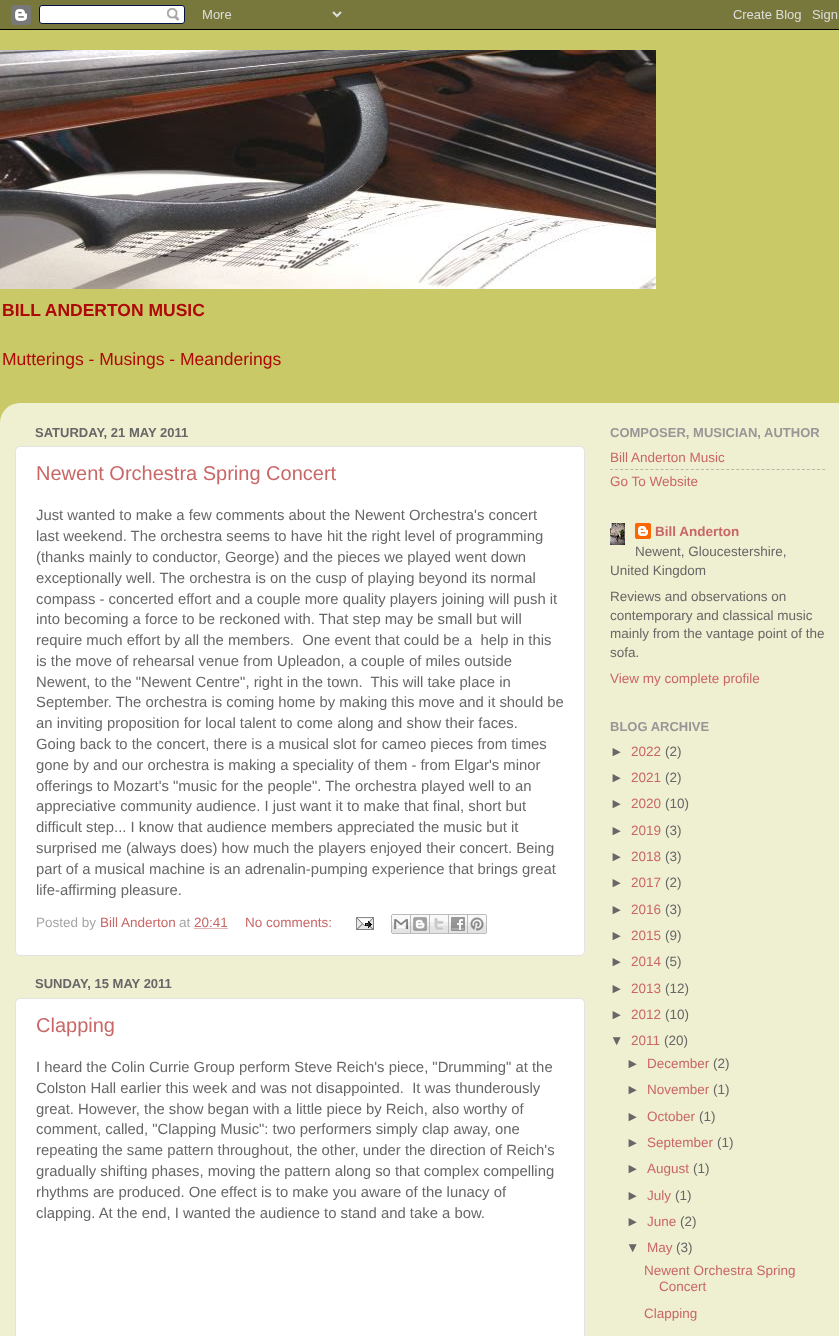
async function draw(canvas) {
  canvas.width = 839;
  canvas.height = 1336;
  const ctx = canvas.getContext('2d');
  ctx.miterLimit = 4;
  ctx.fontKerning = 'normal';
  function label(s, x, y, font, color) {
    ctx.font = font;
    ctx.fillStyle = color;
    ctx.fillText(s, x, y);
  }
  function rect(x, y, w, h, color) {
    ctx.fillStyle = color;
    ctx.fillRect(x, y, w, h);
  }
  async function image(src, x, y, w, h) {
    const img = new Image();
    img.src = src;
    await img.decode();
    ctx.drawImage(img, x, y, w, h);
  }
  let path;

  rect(0, 0, 839, 1336, '#c9c967');
  await image('assets/img1.png', 0, 0, 839, 30);
  await image('assets/img2.png', 0, 50, 656, 239);
  label('BILL ANDERTON MUSIC', 2, 316, 'bold 17.5px Liberation Sans', '#ae0808');
  label('Mutterings - Musings - Meanderings', 2, 365, '17.5px Liberation Sans', '#ae0808');
  await image('assets/img3.png', 0, 403, 839, 933);
  label('SATURDAY, 21 MAY 2011', 35, 437, 'bold 13px Liberation Sans', '#676767');
  ctx.fillStyle = '#fff';
  ctx.beginPath();
  ctx.roundRect(15.5, 446.5, 569, 509, 4.5);
  ctx.fill();
  ctx.strokeStyle = '#e3e3e3';
  ctx.stroke();
  label('Newent Orchestra Spring Concert', 36, 480, '20px Liberation Sans', '#c96767');
  label('Just wanted to make a few comments about the Newent Orchestra\'s concert', 36, 520, '14.85px Liberation Sans', '#676767');
  label('last weekend. The orchestra seems to have hit the right level of programming', 36, 541, '14.85px Liberation Sans', '#676767');
  label('(thanks mainly to conductor, George) and the pieces we played went down', 36, 562, '14.85px Liberation Sans', '#676767');
  label('exceptionally well. The orchestra is on the cusp of playing beyond its normal', 36, 583, '14.85px Liberation Sans', '#676767');
  label('compass - concerted effort and a couple more quality players joining will push it', 36, 604, '14.85px Liberation Sans', '#676767');
  label('into becoming a force to be reckoned with. That step may be small but will', 36, 624, '14.85px Liberation Sans', '#676767');
  label('require much effort by all the members.  One event that could be a  help in this', 36, 645, '14.85px Liberation Sans', '#676767');
  label('is the move of rehearsal venue from Upleadon, a couple of miles outside', 36, 666, '14.85px Liberation Sans', '#676767');
  label('Newent, to the "Newent Centre", right in the town.  This will take place in', 36, 687, '14.85px Liberation Sans', '#676767');
  label('September. The orchestra is coming home by making this move and it should be', 36, 707, '14.85px Liberation Sans', '#676767');
  label('an inviting proposition for local talent to come along and show their faces.', 36, 728, '14.85px Liberation Sans', '#676767');
  label('Going back to the concert, there is a musical slot for cameo pieces from times', 36, 749, '14.85px Liberation Sans', '#676767');
  label('gone by and our orchestra is making a speciality of them - from Elgar\'s minor', 36, 770, '14.85px Liberation Sans', '#676767');
  label('offerings to Mozart\'s "music for the people". The orchestra played well to an', 36, 791, '14.85px Liberation Sans', '#676767');
  label('appreciative community audience. I just want it to make that final, short but', 36, 811, '14.85px Liberation Sans', '#676767');
  label('difficult step... I know that audience members appreciated the music but it', 36, 832, '14.85px Liberation Sans', '#676767');
  label('surprised me (always does) how much the players enjoyed their concert. Being', 36, 853, '14.85px Liberation Sans', '#676767');
  label('part of a musical machine is an adrenalin-pumping experience that brings great', 36, 874, '14.85px Liberation Sans', '#676767');
  label('life-affirming pleasure.', 36, 895, '14.85px Liberation Sans', '#676767');
  label('Posted by', 36, 927, '13.5px Liberation Sans', '#a5a5a5');
  label('Bill Anderton', 100, 927, '13.5px Liberation Sans', '#c96767');
  label('at', 179, 927, '13.5px Liberation Sans', '#a5a5a5');
  label('20:41', 194, 927, '13.5px Liberation Sans', '#c96767');
  path = new Path2D('M194.5 928.5H228');
  ctx.strokeStyle = '#c96767';
  ctx.setLineDash([1, 1]);
  ctx.stroke(path);
  label('No comments:', 245, 927, '13.5px Liberation Sans', '#c96767');
  await image('assets/img4.png', 356, 917, 18, 13);
  await image('assets/img5.png', 391, 914, 20, 20);
  await image('assets/img6.png', 411, 914, 19, 20);
  await image('assets/img7.png', 430, 914, 19, 20);
  await image('assets/img8.png', 449, 914, 19, 20);
  await image('assets/img9.png', 468, 914, 19, 20);
  label('SUNDAY, 15 MAY 2011', 35, 988, 'bold 13px Liberation Sans', '#676767');
  ctx.fillStyle = '#fff';
  ctx.beginPath();
  ctx.roundRect(15.5, 998.5, 569, 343, 4.5);
  ctx.fill();
  ctx.strokeStyle = '#e3e3e3';
  ctx.setLineDash([]);
  ctx.stroke();
  label('Clapping', 36, 1032, '20px Liberation Sans', '#c96767');
  label('I heard the Colin Currie Group perform Steve Reich\'s piece, "Drumming" at the', 36, 1072, '14.85px Liberation Sans', '#676767');
  label('Colston Hall earlier this week and was not disappointed.  It was thunderously', 36, 1093, '14.85px Liberation Sans', '#676767');
  label('great. However, the show began with a little piece by Reich, also worthy of', 36, 1114, '14.85px Liberation Sans', '#676767');
  label('comment, called, "Clapping Music": two performers simply clap away, one', 36, 1134, '14.85px Liberation Sans', '#676767');
  label('repeating the same pattern throughout, the other, under the direction of Reich\'s', 36, 1155, '14.85px Liberation Sans', '#676767');
  label('gradually shifting phases, moving the pattern along so that complex compelling', 36, 1176, '14.85px Liberation Sans', '#676767');
  label('rhythms are produced. One effect is to make you aware of the lunacy of', 36, 1197, '14.85px Liberation Sans', '#676767');
  label('clapping. At the end, I wanted the audience to stand and take a bow.', 36, 1218, '14.85px Liberation Sans', '#676767');
  label('COMPOSER, MUSICIAN, AUTHOR', 610, 437, 'bold 13px Liberation Sans', '#979797');
  label('Bill Anderton Music', 610, 462, '13.5px Liberation Sans', '#c96767');
  path = new Path2D('M610 469.5H825');
  ctx.strokeStyle = '#b7b7a9';
  ctx.setLineDash([3, 2.05]);
  ctx.stroke(path);
  label('Go To Website', 610, 486, '13.5px Liberation Sans', '#c96767');
  await image('assets/img10.png', 610, 523, 15, 22);
  await image('assets/img11.png', 635, 523, 16, 16);
  label('Bill Anderton', 655, 536, 'bold 13.5px Liberation Sans', '#c96767');
  label('Newent, Gloucestershire,', 635, 556, '13.5px Liberation Sans', '#676767');
  label('United Kingdom', 610, 575, '13.5px Liberation Sans', '#676767');
  label('Reviews and observations on', 610, 601, '13.5px Liberation Sans', '#676767');
  label('contemporary and classical music', 610, 620, '13.5px Liberation Sans', '#676767');
  label('mainly from the vantage point of the', 610, 638, '13.5px Liberation Sans', '#676767');
  label('sofa.', 610, 657, '13.5px Liberation Sans', '#676767');
  label('View my complete profile', 610, 683, '13.5px Liberation Sans', '#c96767');
  label('BLOG ARCHIVE', 610, 731, 'bold 13px Liberation Sans', '#979797');
  label('►', 610, 756, '13.5px Liberation Sans', '#676767');
  label('2022', 631, 756, '13.5px Liberation Sans', '#c96767');
  label('(2)', 665, 756, '13.5px Liberation Sans', '#676767');
  label('►', 610, 782, '13.5px Liberation Sans', '#676767');
  label('2021', 631, 782, '13.5px Liberation Sans', '#c96767');
  label('(2)', 665, 782, '13.5px Liberation Sans', '#676767');
  label('►', 610, 808, '13.5px Liberation Sans', '#676767');
  label('2020', 631, 808, '13.5px Liberation Sans', '#c96767');
  label('(10)', 665, 808, '13.5px Liberation Sans', '#676767');
  label('►', 610, 835, '13.5px Liberation Sans', '#676767');
  label('2019', 631, 835, '13.5px Liberation Sans', '#c96767');
  label('(3)', 665, 835, '13.5px Liberation Sans', '#676767');
  label('►', 610, 861, '13.5px Liberation Sans', '#676767');
  label('2018', 631, 861, '13.5px Liberation Sans', '#c96767');
  label('(3)', 665, 861, '13.5px Liberation Sans', '#676767');
  label('►', 610, 887, '13.5px Liberation Sans', '#676767');
  label('2017', 631, 887, '13.5px Liberation Sans', '#c96767');
  label('(2)', 665, 887, '13.5px Liberation Sans', '#676767');
  label('►', 610, 914, '13.5px Liberation Sans', '#676767');
  label('2016', 631, 914, '13.5px Liberation Sans', '#c96767');
  label('(3)', 665, 914, '13.5px Liberation Sans', '#676767');
  label('►', 610, 940, '13.5px Liberation Sans', '#676767');
  label('2015', 631, 940, '13.5px Liberation Sans', '#c96767');
  label('(9)', 665, 940, '13.5px Liberation Sans', '#676767');
  label('►', 610, 966, '13.5px Liberation Sans', '#676767');
  label('2014', 631, 966, '13.5px Liberation Sans', '#c96767');
  label('(5)', 665, 966, '13.5px Liberation Sans', '#676767');
  label('►', 610, 993, '13.5px Liberation Sans', '#676767');
  label('2013', 631, 993, '13.5px Liberation Sans', '#c96767');
  label('(12)', 665, 993, '13.5px Liberation Sans', '#676767');
  label('►', 610, 1019, '13.5px Liberation Sans', '#676767');
  label('2012', 631, 1019, '13.5px Liberation Sans', '#c96767');
  label('(10)', 665, 1019, '13.5px Liberation Sans', '#676767');
  label('▼', 610, 1045, '13.5px Liberation Sans', '#676767');
  label('2011', 631, 1045, '13.5px Liberation Sans', '#c96767');
  label('(20)', 664, 1045, '13.5px Liberation Sans', '#676767');
  label('►', 626, 1068, '13.5px Liberation Sans', '#676767');
  label('December', 647, 1068, '13.5px Liberation Sans', '#c96767');
  label('(2)', 713, 1068, '13.5px Liberation Sans', '#676767');
  label('►', 626, 1094, '13.5px Liberation Sans', '#676767');
  label('November', 647, 1094, '13.5px Liberation Sans', '#c96767');
  label('(1)', 713, 1094, '13.5px Liberation Sans', '#676767');
  label('►', 626, 1121, '13.5px Liberation Sans', '#676767');
  label('October', 647, 1121, '13.5px Liberation Sans', '#c96767');
  label('(1)', 699, 1121, '13.5px Liberation Sans', '#676767');
  label('►', 626, 1147, '13.5px Liberation Sans', '#676767');
  label('September', 647, 1147, '13.5px Liberation Sans', '#c96767');
  label('(1)', 717, 1147, '13.5px Liberation Sans', '#676767');
  label('►', 626, 1173, '13.5px Liberation Sans', '#676767');
  label('August', 647, 1173, '13.5px Liberation Sans', '#c96767');
  label('(1)', 693, 1173, '13.5px Liberation Sans', '#676767');
  label('►', 626, 1200, '13.5px Liberation Sans', '#676767');
  label('July', 647, 1200, '13.5px Liberation Sans', '#c96767');
  label('(1)', 675, 1200, '13.5px Liberation Sans', '#676767');
  label('►', 626, 1226, '13.5px Liberation Sans', '#676767');
  label('June', 647, 1226, '13.5px Liberation Sans', '#c96767');
  label('(2)', 680, 1226, '13.5px Liberation Sans', '#676767');
  label('▼', 626, 1252, '13.5px Liberation Sans', '#676767');
  label('May', 647, 1252, '13.5px Liberation Sans', '#c96767');
  label('(3)', 676, 1252, '13.5px Liberation Sans', '#676767');
  label('Newent Orchestra Spring', 644, 1275, '13.5px Liberation Sans', '#c96767');
  label('Concert', 659, 1291, '13.5px Liberation Sans', '#c96767');
  label('Clapping', 644, 1318, '13.5px Liberation Sans', '#c96767');
}

draw(document.querySelector('canvas'));
